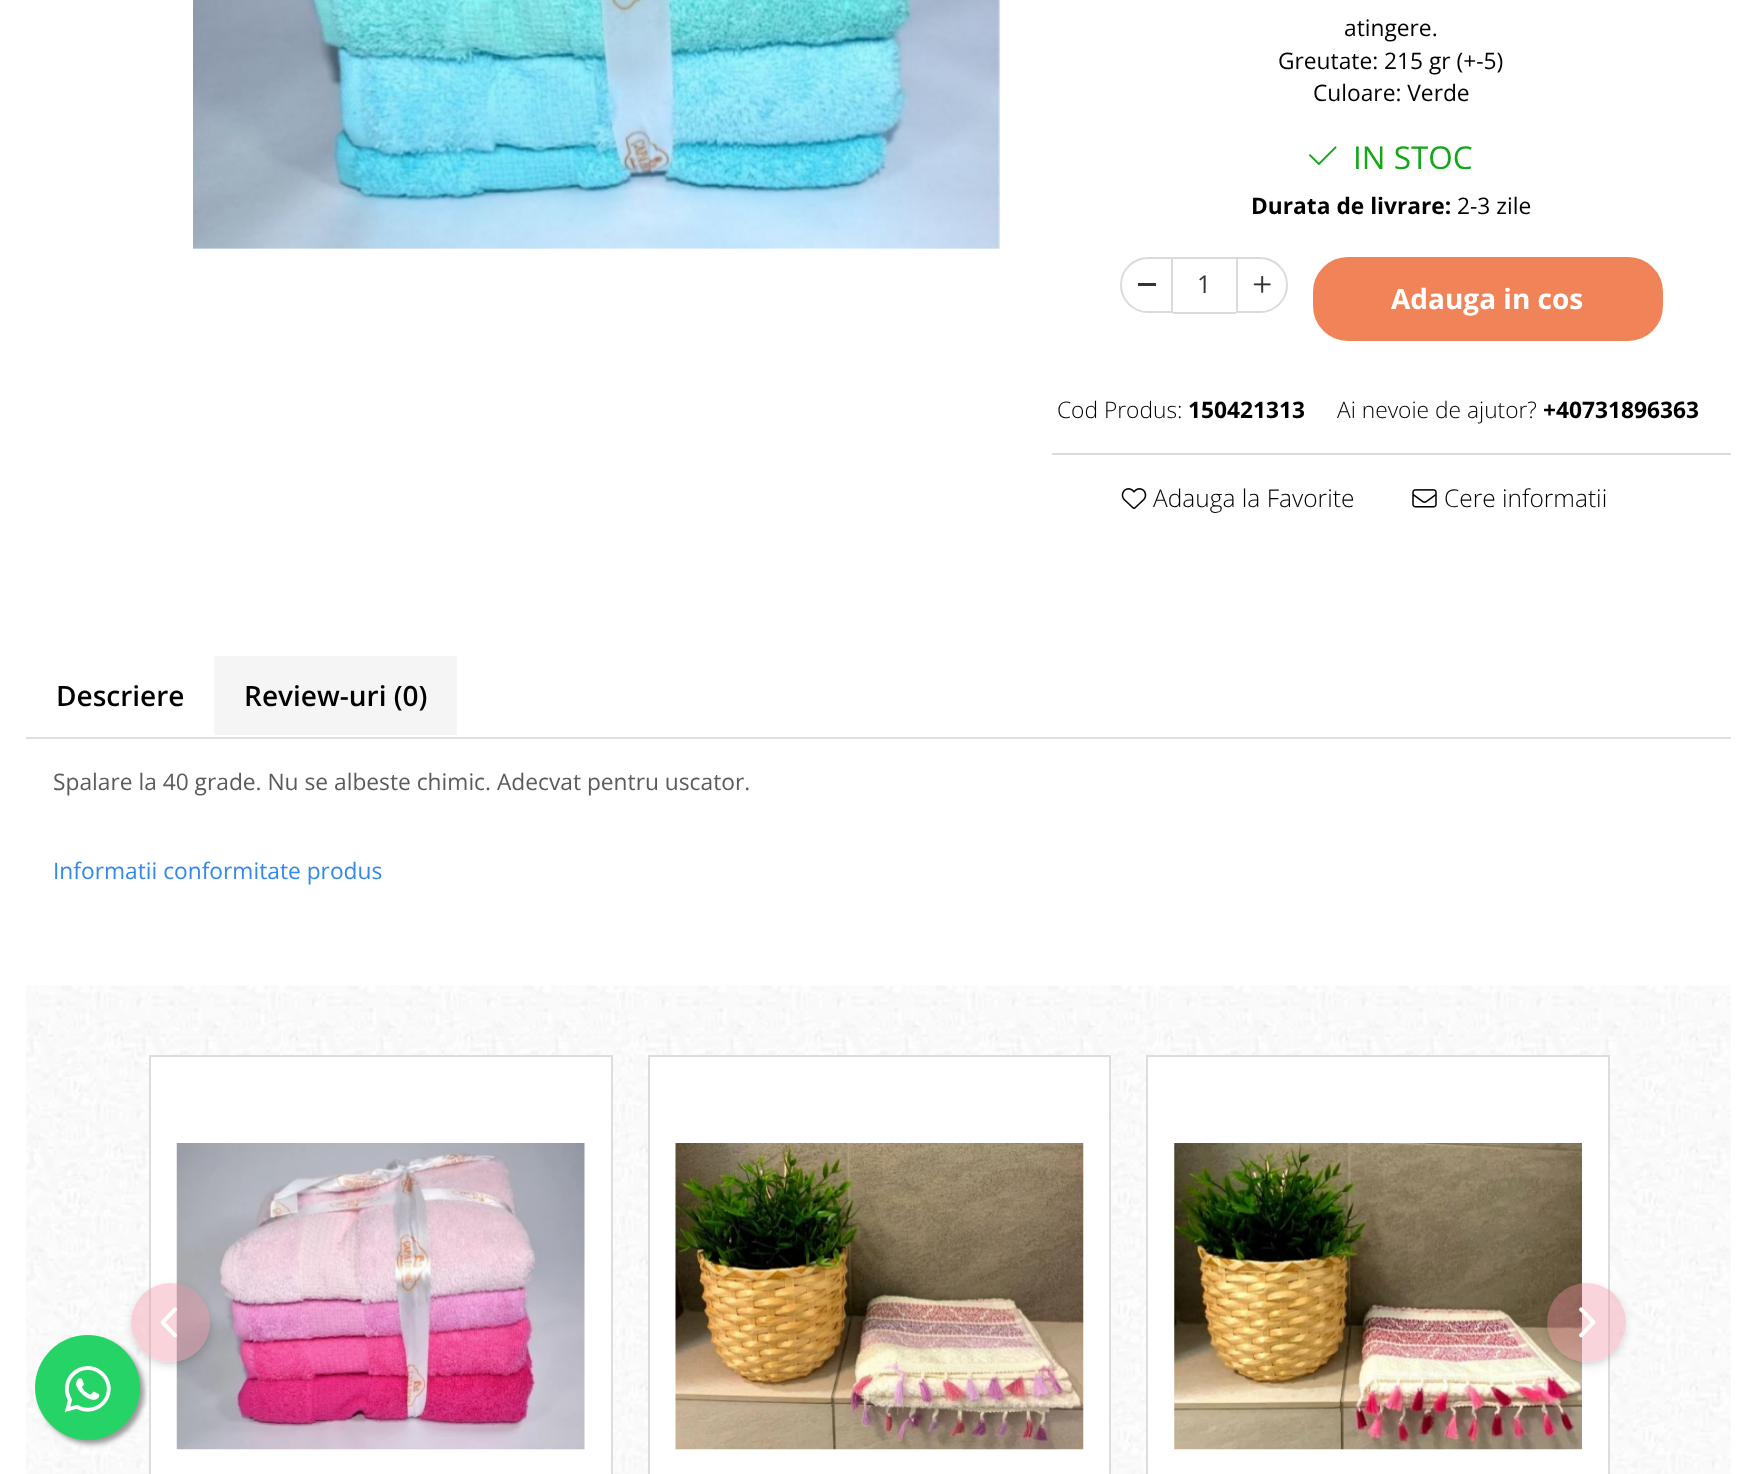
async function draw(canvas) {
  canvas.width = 1757;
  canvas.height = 1474;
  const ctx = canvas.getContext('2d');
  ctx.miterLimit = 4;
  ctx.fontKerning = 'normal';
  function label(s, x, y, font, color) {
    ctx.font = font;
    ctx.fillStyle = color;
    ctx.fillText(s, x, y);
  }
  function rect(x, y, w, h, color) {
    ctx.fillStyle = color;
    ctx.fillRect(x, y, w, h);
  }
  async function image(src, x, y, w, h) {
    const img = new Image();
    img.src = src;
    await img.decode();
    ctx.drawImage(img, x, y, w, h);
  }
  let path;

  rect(0, 0, 1757, 1474, '#fff');
  await image('assets/img1.png', 193, 0, 807, 249);
  label('atingere.', 1344, 36, '22.75px Open Sans', '#000');
  label('Greutate: 215 gr (+-5)', 1278, 69, '22.75px Open Sans', '#000');
  label('Culoare: Verde', 1313, 101, '22.75px Open Sans', '#000');
  await image('assets/img2.png', 1309, 146, 28, 19);
  label('IN STOC', 1353, 169, '31.5px Open Sans', '#11a717');
  label('Durata de livrare:', 1251, 214, 'bold 22.75px Open Sans', '#000');
  label('2-3 zile', 1457, 214, '22.75px Open Sans', '#000');
  ctx.beginPath();
  ctx.roundRect(1121, 258, 51, 54, [27, 0, 0, 27]);
  ctx.strokeStyle = '#dbdbdb';
  ctx.lineWidth = 2;
  ctx.stroke();
  rect(1138, 283, 18, 3, '#333');
  rect(1173, 257, 63, 2, '#dbdbdb');
  rect(1173, 312, 63, 2, '#dbdbdb');
  label('1', 1197, 293, '24.5px Open Sans', '#333');
  ctx.beginPath();
  ctx.roundRect(1237, 258, 50, 54, [0, 27, 27, 0]);
  ctx.stroke();
  await image('assets/img3.png', 1253, 275, 18, 18);
  ctx.fillStyle = '#f08358';
  ctx.beginPath();
  ctx.roundRect(1314, 258, 348, 82, 34);
  ctx.fill();
  ctx.strokeStyle = '#f08358';
  ctx.stroke();
  label('Adauga in cos', 1391, 309, 'bold 28px Open Sans', '#fff');
  label('Cod Produs:', 1057, 418, '300 22.75px Open Sans', '#000');
  label('150421313', 1188, 418, 'bold 22.75px Open Sans', '#000');
  label('Ai nevoie de ajutor?', 1337, 418, '300 22.75px Open Sans', '#000');
  label('+40731896363', 1543, 418, 'bold 22.75px Open Sans', '#000');
  rect(1052, 453, 679, 2, '#dbdbdb');
  await image('assets/img4.png', 1121, 488, 26, 21);
  label('Adauga la Favorite', 1153, 507, '300 24.5px Open Sans', '#000');
  await image('assets/img5.png', 1412, 489, 25, 19);
  label('Cere informatii', 1444, 507, '300 24.5px Open Sans', '#000');
  label('Descriere', 56, 706, '600 28px Open Sans', '#000');
  rect(214, 656, 243, 79, '#f5f5f5');
  label('Review-uri (0)', 244, 706, '600 28px Open Sans', '#000');
  rect(26, 737, 1705, 2, '#dfdfdf');
  label('Spalare la 40 grade. Nu se albeste chimic. Adecvat pentru uscator.', 53, 790, '22.75px Open Sans', '#5b5b5b');
  label('Informatii conformitate produs', 53, 879, '22.75px Open Sans', '#3388eb');
  await image('assets/img6.png', 26, 985, 1705, 489);
  ctx.fillStyle = '#fff';
  ctx.beginPath();
  ctx.rect(150, 1056, 462, 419);
  ctx.fill();
  ctx.strokeStyle = '#ddd';
  ctx.stroke();
  await image('assets/img7.png', 176, 1143, 409, 307);
  ctx.beginPath();
  ctx.rect(649, 1056, 461, 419);
  ctx.fill();
  ctx.stroke();
  await image('assets/img8.png', 675, 1143, 409, 307);
  ctx.beginPath();
  ctx.rect(1147, 1056, 462, 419);
  ctx.fill();
  ctx.stroke();
  await image('assets/img9.png', 1174, 1143, 408, 307);
  ctx.save();
  path = new Path2D('M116 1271H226V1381H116ZM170.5 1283C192.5 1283 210 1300.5 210 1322.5C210 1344.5 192.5 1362 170.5 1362C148.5 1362 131 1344.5 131 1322.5C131 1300.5 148.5 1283 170.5 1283Z');
  ctx.clip(path, 'evenodd');
  ctx.fillStyle = '#0000004d';
  ctx.filter = 'blur(6px)';
  ctx.beginPath();
  ctx.roundRect(135, 1290, 72, 72, 36);
  ctx.fill();
  ctx.filter = 'none';
  ctx.restore();
  ctx.fillStyle = '#ef8e9f61';
  ctx.beginPath();
  ctx.arc(170.5, 1322.5, 39.5, 0, 2 * Math.PI);
  ctx.fill();
  await image('assets/img10.png', 160, 1307, 17, 31);
  ctx.save();
  path = new Path2D('M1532 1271H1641V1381H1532ZM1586.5 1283C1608.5 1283 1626 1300.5 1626 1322.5C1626 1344.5 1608.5 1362 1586.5 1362C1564.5 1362 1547 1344.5 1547 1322.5C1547 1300.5 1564.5 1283 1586.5 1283Z');
  ctx.clip(path, 'evenodd');
  ctx.fillStyle = '#0000004d';
  ctx.filter = 'blur(6px)';
  ctx.beginPath();
  ctx.roundRect(1551, 1290, 71, 72, 35.5);
  ctx.fill();
  ctx.filter = 'none';
  ctx.restore();
  ctx.beginPath();
  ctx.arc(1586.5, 1322.5, 39.5, 0, 2 * Math.PI);
  ctx.fill();
  await image('assets/img11.png', 1579, 1307, 17, 31);
  ctx.fillStyle = '#999';
  ctx.filter = 'blur(2.5px)';
  ctx.beginPath();
  ctx.roundRect(39, 1339, 105, 105, 52.5);
  ctx.fill();
  ctx.filter = 'none';
  ctx.fillStyle = '#25d366';
  ctx.beginPath();
  ctx.arc(87.5, 1387.5, 52.5, 0, 2 * Math.PI);
  ctx.fill();
  await image('assets/img12.png', 64, 1366, 47, 46);
}

draw(document.querySelector('canvas'));
